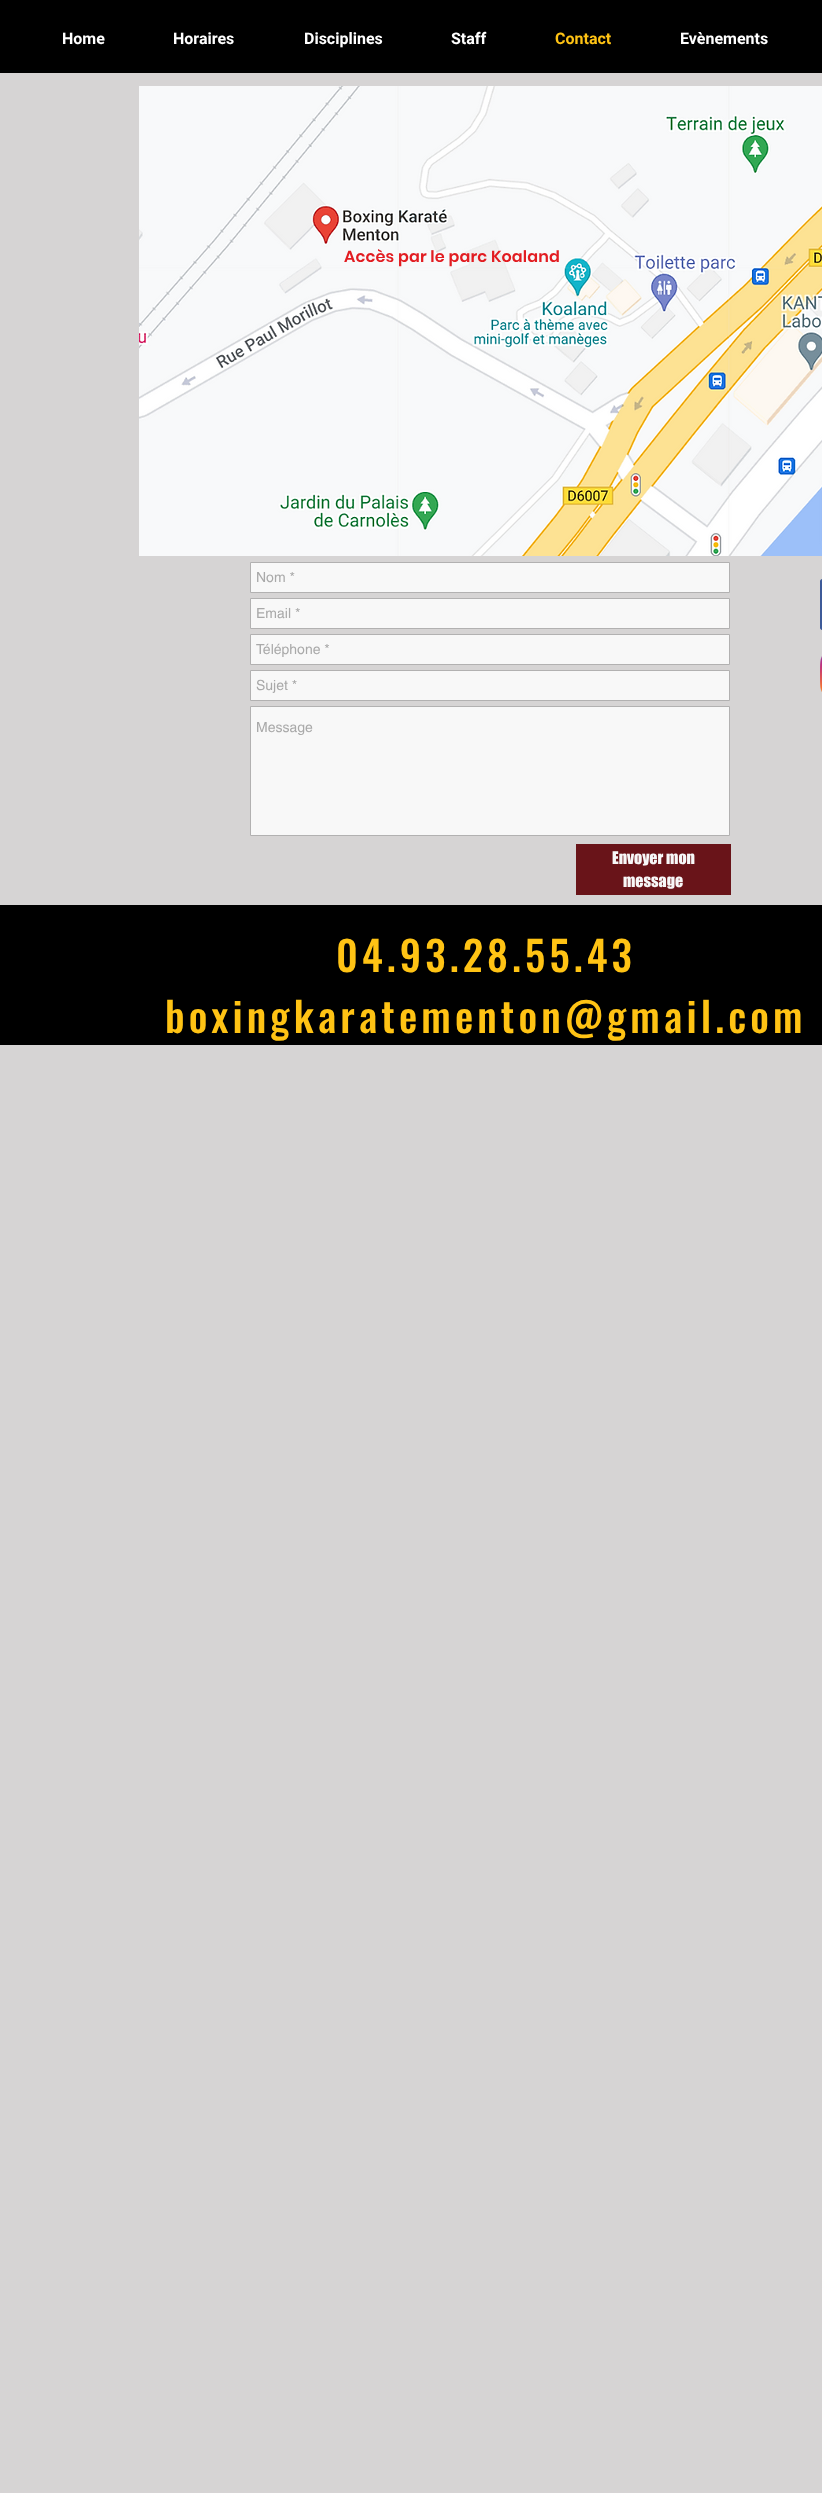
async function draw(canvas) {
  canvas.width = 822;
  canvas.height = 2493;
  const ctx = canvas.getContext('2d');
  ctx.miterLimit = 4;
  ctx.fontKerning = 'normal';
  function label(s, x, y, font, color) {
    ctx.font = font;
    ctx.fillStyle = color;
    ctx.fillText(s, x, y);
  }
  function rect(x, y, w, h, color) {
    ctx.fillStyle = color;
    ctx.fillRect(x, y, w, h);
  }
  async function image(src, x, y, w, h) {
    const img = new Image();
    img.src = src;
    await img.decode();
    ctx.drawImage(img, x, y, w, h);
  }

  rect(0, 0, 822, 2493, '#d6d4d4');
  rect(0, 0, 822, 73, '#000');
  label('Home', 62, 44, 'bold 16px Roboto', '#fff');
  label('Horaires', 173, 44, 'bold 16px Roboto', '#fff');
  label('Disciplines', 304, 44, 'bold 16px Roboto', '#fff');
  label('Staff', 451, 44, 'bold 16px Roboto', '#fff');
  label('Contact', 555, 44, 'bold 16px Roboto', '#ffc314');
  label('Evènements', 680, 44, 'bold 16px Roboto', '#fff');
  await image('assets/img1.png', 139, 86, 683, 470);
  ctx.letterSpacing = '0.15px';
  label('Accès par le parc Koaland', 344, 262, '600 16px Poppins', '#e21c21');
  ctx.fillStyle = '#f8f8f8';
  ctx.beginPath();
  ctx.rect(250.5, 562.5, 479, 30);
  ctx.fill();
  ctx.strokeStyle = '#b2b1b1';
  ctx.stroke();
  ctx.letterSpacing = '0px';
  label('Nom *', 256, 582, '14px helvetica', '#a9a9a9');
  ctx.fillStyle = '#f8f8f8';
  ctx.beginPath();
  ctx.rect(250.5, 598.5, 479, 30);
  ctx.fill();
  ctx.stroke();
  label('Email *', 256, 618, '14px helvetica', '#a9a9a9');
  ctx.fillStyle = '#f8f8f8';
  ctx.beginPath();
  ctx.rect(250.5, 634.5, 479, 30);
  ctx.fill();
  ctx.stroke();
  label('Téléphone *', 256, 654, '14px helvetica', '#a9a9a9');
  ctx.fillStyle = '#f8f8f8';
  ctx.beginPath();
  ctx.rect(250.5, 670.5, 479, 30);
  ctx.fill();
  ctx.stroke();
  label('Sujet *', 256, 690, '14px helvetica', '#a9a9a9');
  ctx.fillStyle = '#f8f8f8';
  ctx.beginPath();
  ctx.rect(250.5, 706.5, 479, 129);
  ctx.fill();
  ctx.stroke();
  label('Message', 256, 732, '14px helvetica', '#a9a9a9');
  rect(576, 844, 155, 51, '#691419');
  label('Envoyer mon', 612, 864, '16px "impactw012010"', '#f8f8f8');
  label('message', 623, 887, '16px "impactw012010"', '#f8f8f8');
  await image('assets/img2.png', 820, 579, 2, 51);
  await image('assets/img3.png', 820, 656, 2, 36);
  rect(0, 905, 822, 140, '#000');
  ctx.letterSpacing = '4.1px';
  label('04.93.28.55.43', 336, 972, '500 41px Oswald', '#ffc314');
  label('boxingkaratementon@gmail.com', 165, 1033, '500 41px Oswald', '#ffc314');
}

draw(document.querySelector('canvas'));
